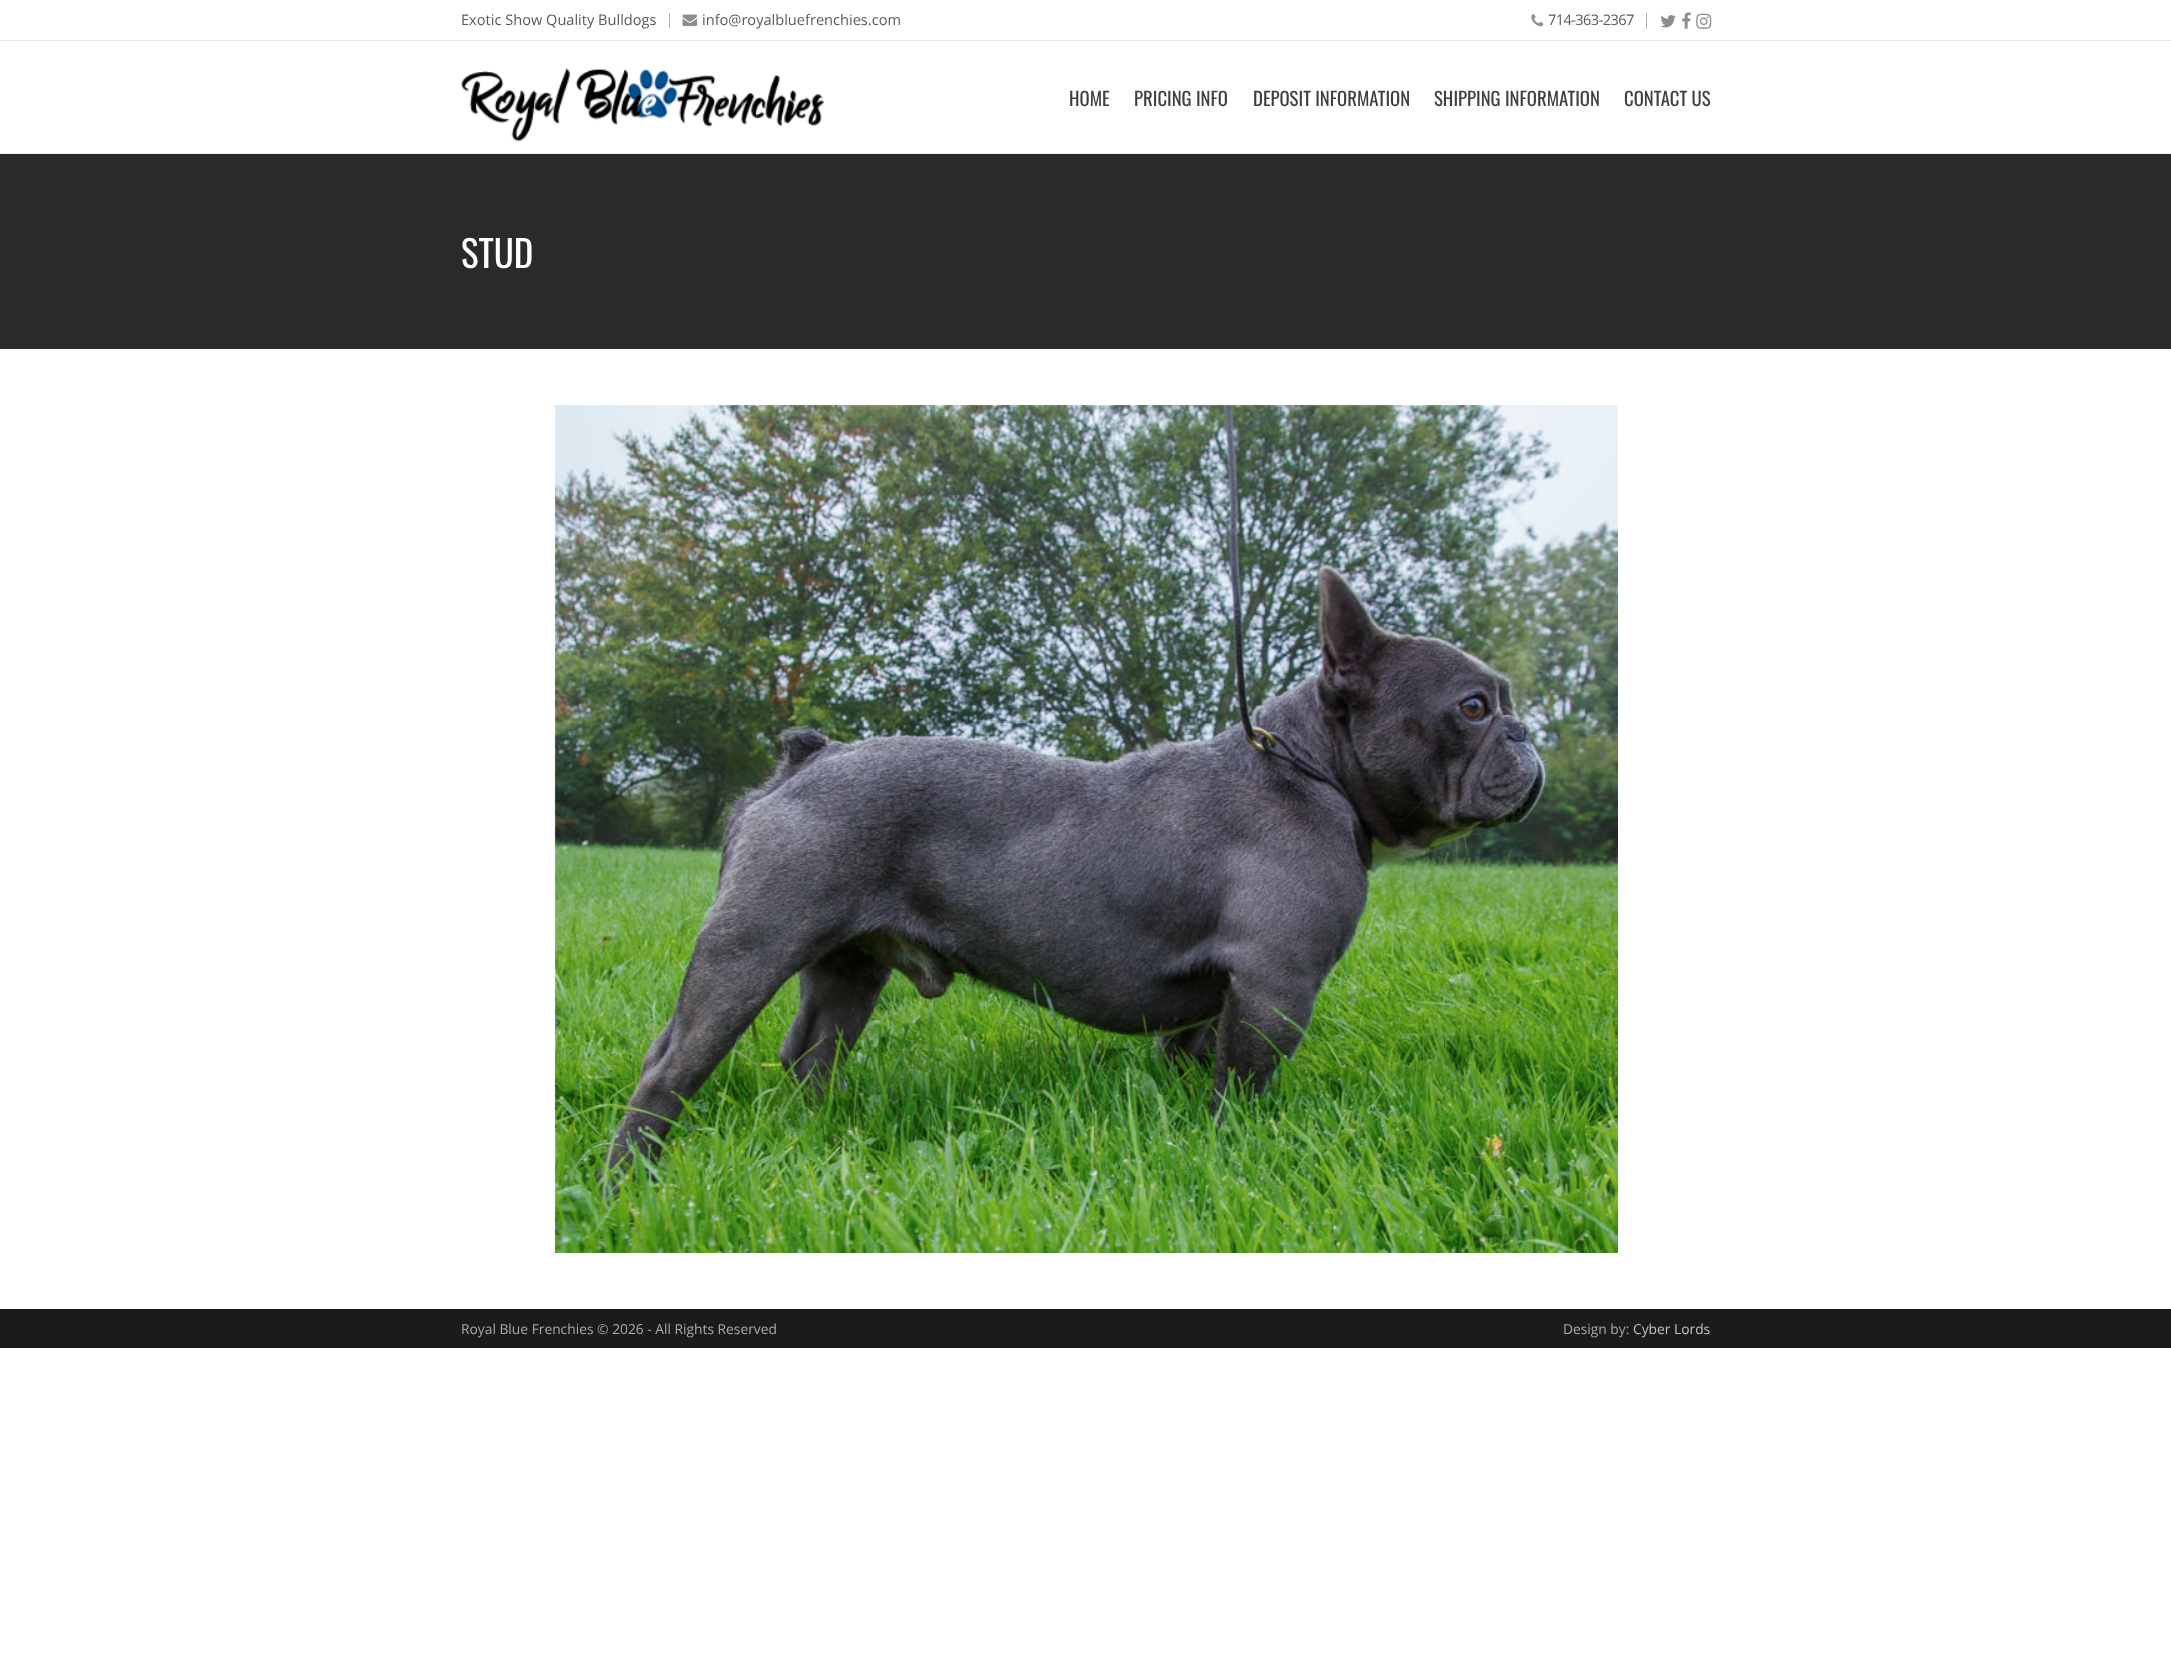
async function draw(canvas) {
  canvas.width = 2171;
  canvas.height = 1676;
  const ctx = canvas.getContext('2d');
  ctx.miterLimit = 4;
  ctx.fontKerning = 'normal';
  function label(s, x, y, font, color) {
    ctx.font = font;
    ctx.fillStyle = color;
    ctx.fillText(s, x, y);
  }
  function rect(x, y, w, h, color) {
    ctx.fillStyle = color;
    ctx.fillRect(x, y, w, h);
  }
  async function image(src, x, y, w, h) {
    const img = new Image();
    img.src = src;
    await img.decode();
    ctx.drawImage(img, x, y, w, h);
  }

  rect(0, 0, 2171, 1676, '#fff');
  rect(0, 40, 2171, 1, '#e6e6e6');
  rect(669, 13, 1, 15, '#b3b3b3');
  label('Exotic Show Quality Bulldogs', 461, 25, '14.6px Open Sans', '#5a5a5a');
  await image('assets/img1.png', 682, 14, 16, 13);
  label('info@royalbluefrenchies.com', 702, 25, '14.6px Open Sans', '#5a5a5a');
  rect(1646, 13, 1, 16, '#b3b3b3');
  await image('assets/img2.png', 1531, 14, 13, 13);
  ctx.letterSpacing = '-0.6px';
  label('714-363-2367', 1548, 25, '14.6px Open Sans', '#5a5a5a');
  await image('assets/img3.png', 1660, 15, 16, 13);
  await image('assets/img4.png', 1682, 12, 9, 17);
  await image('assets/img5.png', 1696, 13, 16, 16);
  rect(0, 153, 2171, 1, '#eee');
  await image('assets/img6.png', 461, 68, 363, 74);
  ctx.letterSpacing = '0px';
  label('HOME', 1069, 106, '18.75px Oswald', '#404040');
  label('PRICING INFO', 1134, 106, '18.75px Oswald', '#404040');
  label('DEPOSIT INFORMATION', 1253, 106, '18.75px Oswald', '#404040');
  label('SHIPPING INFORMATION', 1434, 106, '18.75px Oswald', '#404040');
  label('CONTACT US', 1624, 106, '18.75px Oswald', '#404040');
  rect(0, 154, 2171, 195, '#2a2a2a');
  label('STUD', 461, 268, '37px Oswald', '#fff');
  await image('assets/img7.png', 554, 404, 1064, 849);
  rect(0, 1309, 2171, 39, '#1b1b1b');
  label('Royal Blue Frenchies © 2026 - All Rights Reserved', 461, 1334, '13.8px Open Sans', '#a9a9a9');
  label('Design by:', 1563, 1334, '13.8px Open Sans', '#a9a9a9');
  label('Cyber Lords', 1633, 1334, '13.8px Open Sans', '#c3c3c3');
}

draw(document.querySelector('canvas'));
